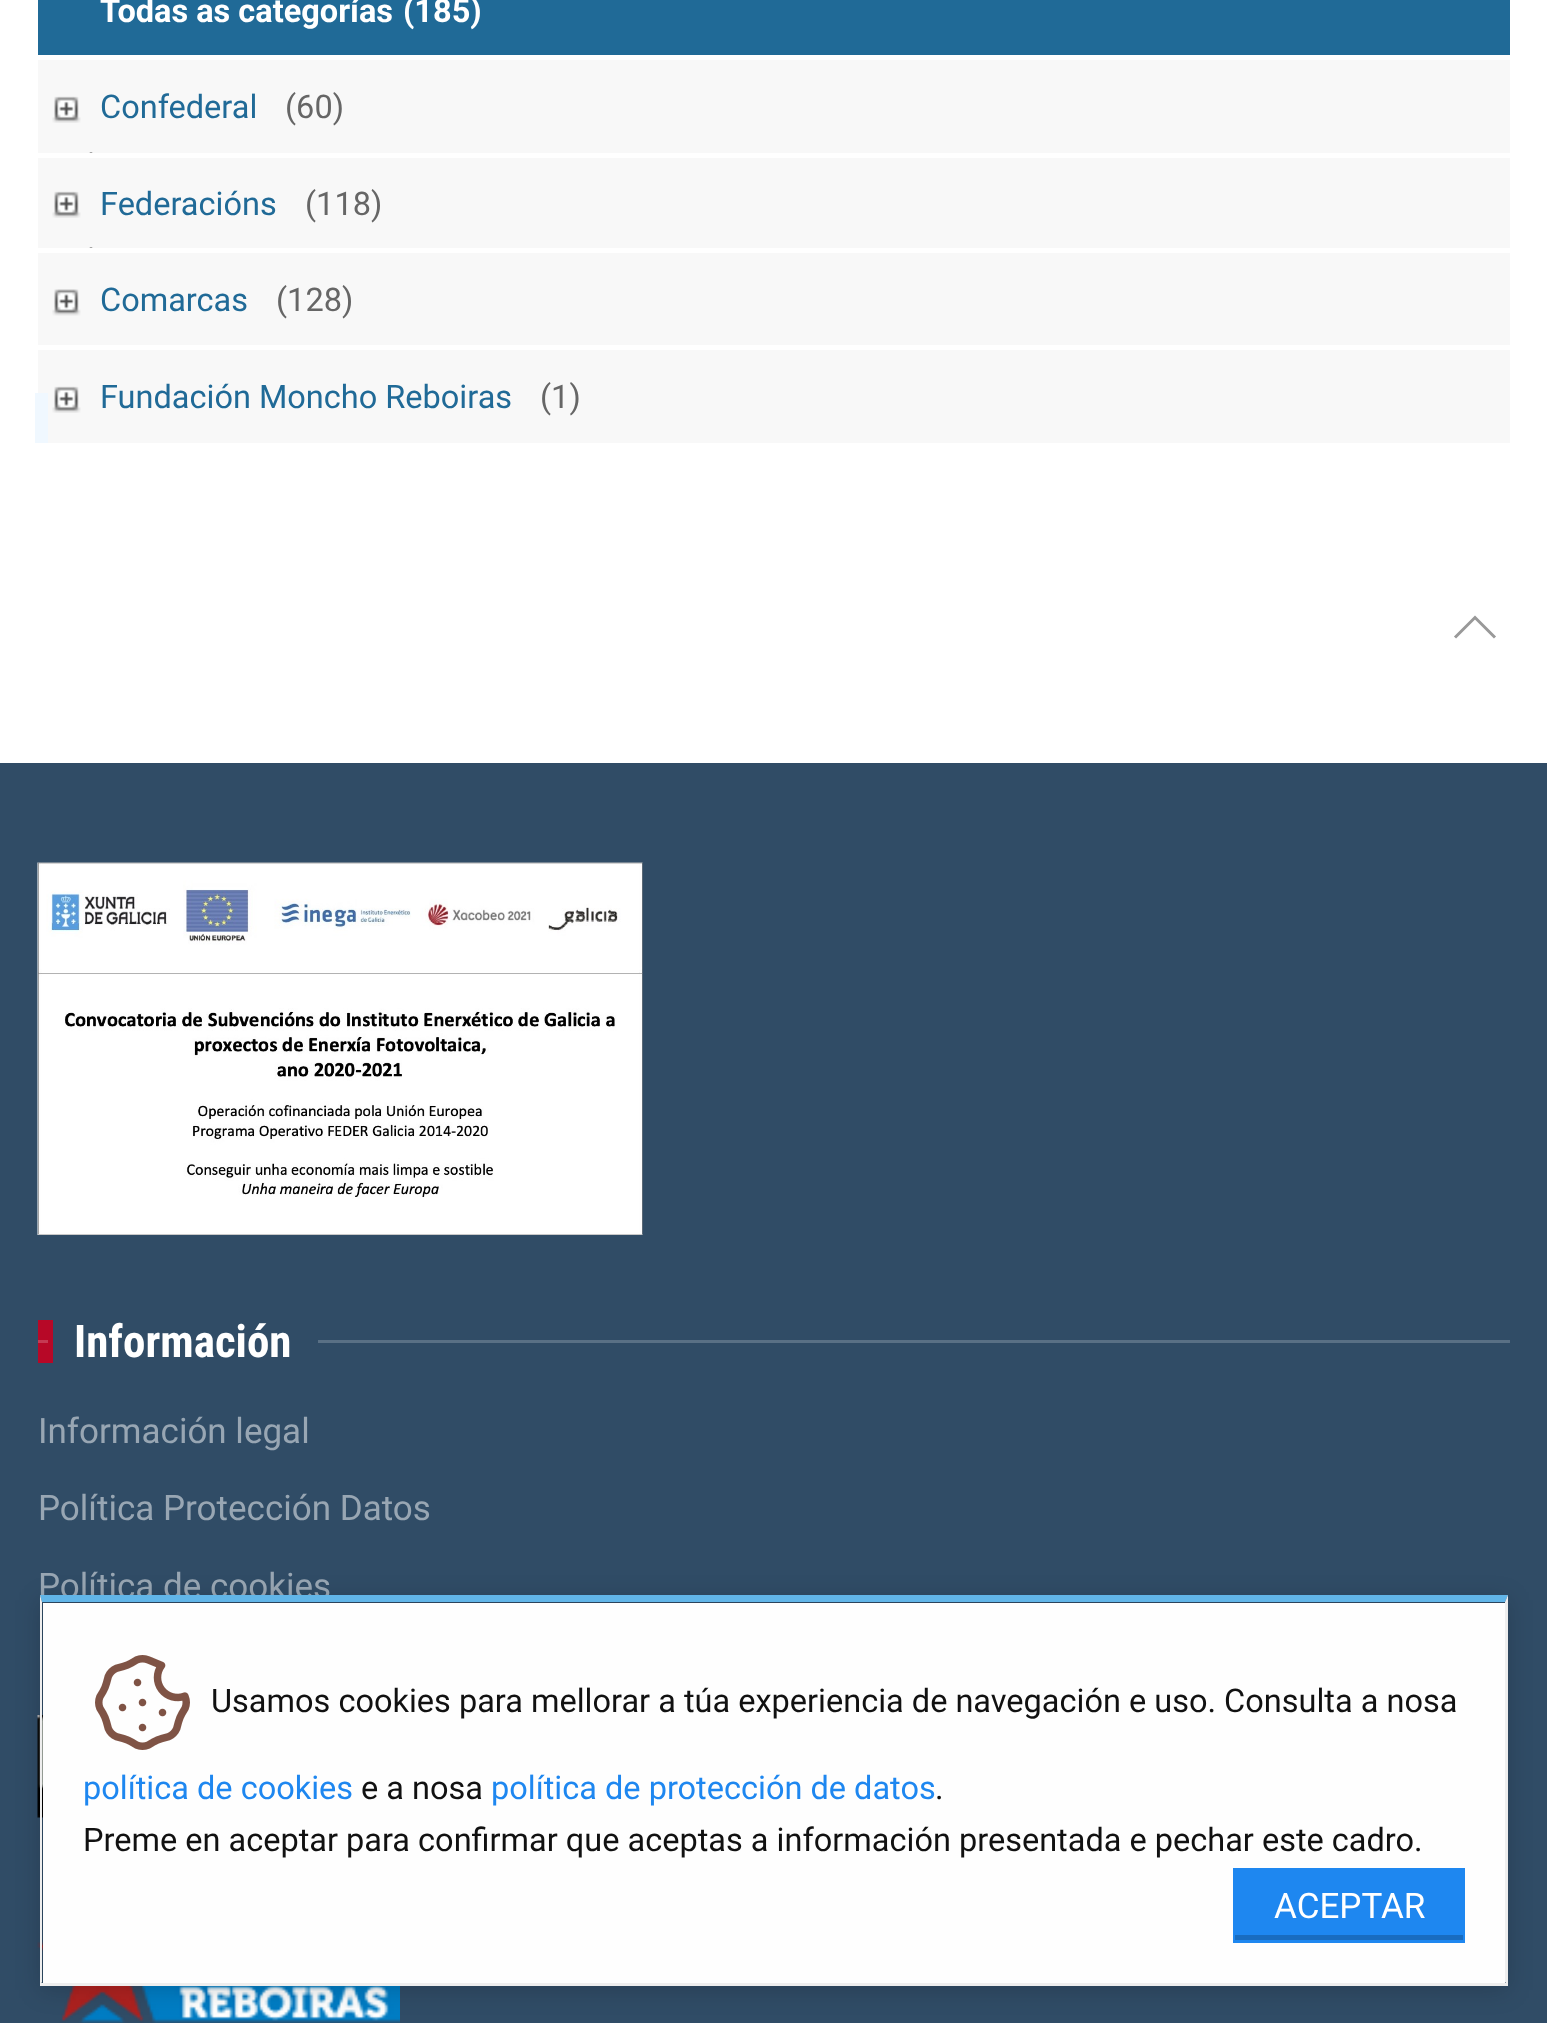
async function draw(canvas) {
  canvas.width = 1547;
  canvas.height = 2023;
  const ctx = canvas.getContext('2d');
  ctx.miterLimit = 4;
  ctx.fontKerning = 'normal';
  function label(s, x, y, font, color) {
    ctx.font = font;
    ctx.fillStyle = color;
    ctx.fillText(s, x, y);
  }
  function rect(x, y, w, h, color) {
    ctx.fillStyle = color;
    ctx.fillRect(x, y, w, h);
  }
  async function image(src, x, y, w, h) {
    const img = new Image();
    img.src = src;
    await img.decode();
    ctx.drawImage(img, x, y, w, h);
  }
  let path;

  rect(0, 0, 1547, 2023, '#fff');
  rect(38, 0, 1472, 55, '#206a97');
  label('Todas as categorías', 100, 22, 'bold 32.5px Roboto', '#fff');
  label('(185)', 403, 22, 'bold 32.5px Roboto', '#fff');
  rect(38, 60, 1472, 93, '#f8f8f8');
  await image('assets/img1.png', 52, 96, 29, 27);
  ctx.save();
  ctx.beginPath();
  ctx.rect(38, 73, 1472, 80);
  ctx.clip();
  path = new Path2D('M91 152.5V245');
  ctx.strokeStyle = '#555';
  ctx.lineWidth = 2.5;
  ctx.setLineDash([2.5, 2.5]);
  ctx.stroke(path);
  ctx.restore();
  label('Confederal', 100, 118, '32.5px Roboto', '#206a97');
  label('(60)', 285, 118, '32.5px Roboto', '#666');
  rect(38, 158, 1472, 90, '#f8f8f8');
  await image('assets/img1.png', 52, 191, 29, 27);
  ctx.save();
  ctx.beginPath();
  ctx.rect(38, 168, 1472, 80);
  ctx.clip();
  path = new Path2D('M91 247.5V342.5');
  ctx.strokeStyle = '#555';
  ctx.lineWidth = 2.5;
  ctx.setLineDash([2.5, 2.5]);
  ctx.stroke(path);
  ctx.restore();
  label('Federacións', 100, 215, '32.5px Roboto', '#206a97');
  label('(118)', 305, 215, '32.5px Roboto', '#666');
  rect(38, 253, 1472, 92, '#f8f8f8');
  await image('assets/img2.png', 52, 289, 29, 27);
  label('Comarcas', 100, 311, '32.5px Roboto', '#206a97');
  label('(128)', 276, 311, '32.5px Roboto', '#666');
  rect(38, 350, 1472, 93, '#f8f8f8');
  rect(35, 393, 13, 50, '#f0f8ff');
  await image('assets/img1.png', 52, 386, 29, 27);
  label('Fundación Moncho Reboiras', 100, 408, '32.5px Roboto', '#206a97');
  label('(1)', 540, 408, '32.5px Roboto', '#666');
  path = new Path2D('M1455 637.5L1475 617.5L1495 637.5');
  ctx.strokeStyle = '#999';
  ctx.lineWidth = 3;
  ctx.stroke(path);
  rect(0, 763, 1547, 1260, '#304c66');
  await image('assets/img3.png', 37, 862, 606, 373);
  rect(38, 1320, 15, 43, '#b70827');
  rect(38, 1340, 10, 3, '#c53952');
  label('Información', 74, 1357, 'bold 45px Roboto Condensed', '#fff');
  rect(318, 1340, 1192, 3, '#597085');
  label('Información legal', 38, 1443, '35px Roboto', '#98a6b3');
  label('Política Protección Datos', 38, 1520, '35px Roboto', '#98a6b3');
  label('Política de cookies', 38, 1598, '35px Roboto', '#98a6b3');
  await image('assets/img4.png', 37, 1715, 6, 103);
  await image('assets/img5.png', 37, 1942, 363, 81);
  ctx.fillStyle = '#0000002b';
  ctx.filter = 'blur(12.5px)';
  ctx.beginPath();
  ctx.rect(40, 1600, 1468, 390);
  ctx.fill();
  ctx.filter = 'none';
  rect(43, 1603, 1462, 380, '#fefefe');
  ctx.fillStyle = '#61b5e8';
  path = new Path2D('M40 1595H1508L1505 1602H42Z');
  ctx.fill(path);
  ctx.fillStyle = '#eee';
  path = new Path2D('M1508 1595V1985L1505 1982V1602Z');
  ctx.fill(path);
  rect(40, 1983, 1468, 3, '#eee');
  path = new Path2D('M40 1985V1595L42 1602V1982Z');
  ctx.fill(path);
  await image('assets/img6.png', 95, 1655, 95, 95);
  label('Usamos cookies para mellorar a túa experiencia de navegación e uso. Consulta a nosa', 211, 1712, '32.5px Roboto', '#111');
  label('política de cookies', 83, 1799, '32.5px Roboto', '#1e87f0');
  label('e a nosa', 361, 1799, '32.5px Roboto', '#111');
  label('política de protección de datos', 491, 1799, '32.5px Roboto', '#1e87f0');
  label('.', 935, 1799, '32.5px Roboto', '#111');
  label('Preme en aceptar para confirmar que aceptas a información presentada e pechar este cadro.', 83, 1851, '32.5px Roboto', '#111');
  rect(1233, 1868, 232, 75, '#1e87f0');
  rect(1235, 1935, 228, 5, '#186cc0');
  label('ACEPTAR', 1274, 1918, '35px Roboto', '#fff');
}

draw(document.querySelector('canvas'));
